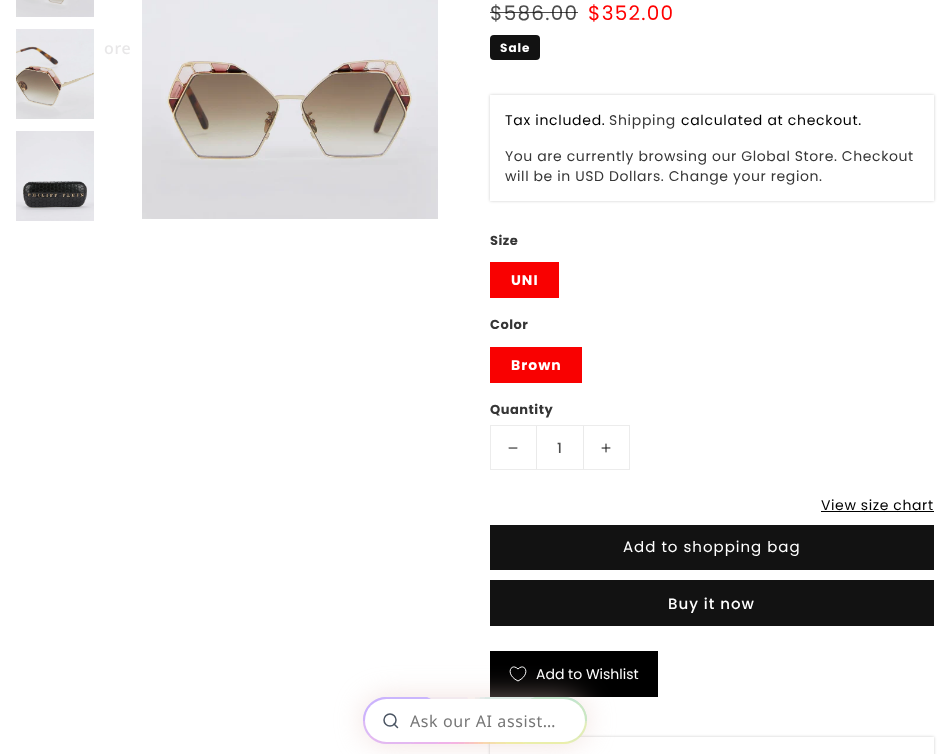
async function draw(canvas) {
  canvas.width = 949;
  canvas.height = 754;
  const ctx = canvas.getContext('2d');
  ctx.miterLimit = 4;
  ctx.fontKerning = 'normal';
  function label(s, x, y, font, color) {
    ctx.font = font;
    ctx.fillStyle = color;
    ctx.fillText(s, x, y);
  }
  function rect(x, y, w, h, color) {
    ctx.fillStyle = color;
    ctx.fillRect(x, y, w, h);
  }
  function roundedRect(x, y, w, h, r, color) {
    ctx.fillStyle = color;
    ctx.beginPath();
    ctx.roundRect(x, y, w, h, r);
    ctx.fill();
  }
  async function image(src, x, y, w, h) {
    const img = new Image();
    img.src = src;
    await img.decode();
    ctx.drawImage(img, x, y, w, h);
  }
  let path;

  rect(0, 0, 949, 754, '#fff');
  ctx.letterSpacing = '0.6px';
  label('ore', 104, 54, '500 16px Noto Sans', '#e8e7e8');
  rect(490, 651, 168, 46, '#000');
  path = new Path2D('M518 681C504.5 674.5 511 662 518 669C525 662 531.5 674.5 518 681Z');
  ctx.strokeStyle = '#fff';
  ctx.stroke(path);
  ctx.fillStyle = '#e6c5bf80';
  ctx.filter = 'blur(14px)';
  ctx.beginPath();
  ctx.roundRect(363, 697, 224, 47, 23.5);
  ctx.fill();
  ctx.filter = 'none';
  ctx.save();
  path = new Path2D('M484 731H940V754H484ZM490 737H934V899H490Z');
  ctx.clip(path, 'evenodd');
  ctx.fillStyle = '#00000033';
  ctx.filter = 'blur(1.5px)';
  ctx.beginPath();
  ctx.rect(490, 737, 444, 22);
  ctx.fill();
  ctx.filter = 'none';
  ctx.restore();
  await image('assets/img1.png', 363, 697, 224, 47);
  await image('assets/img2.png', 363, 697, 224, 47);
  roundedRect(365, 699, 220, 43, 21.5, '#fff');
  ctx.beginPath();
  ctx.arc(390, 720, 6, 0, 2 * Math.PI);
  ctx.strokeStyle = '#4b5563';
  ctx.lineWidth = 1.5;
  ctx.stroke();
  path = new Path2D('M397.5 727.5L394 724');
  ctx.lineCap = 'round';
  ctx.lineJoin = 'round';
  ctx.stroke(path);
  label('Ask our AI assist…', 410, 727, '16px Noto Sans', '#767676');
  await image('assets/img3.png', 16, 0, 78, 17);
  await image('assets/img4.png', 16, 29, 78, 90);
  await image('assets/img5.png', 16, 131, 78, 90);
  await image('assets/img6.png', 142, 0, 296, 219);
  ctx.letterSpacing = '1.25px';
  label('$586.00', 490, 20, '20px Poppins', '#4d4d4d');
  rect(490, 12, 88, 1, '#121212bf');
  label('$352.00', 588, 20, '20px Poppins', '#f00');
  roundedRect(490, 35, 50, 25, 4, '#121212');
  ctx.letterSpacing = '1px';
  label('Sale', 500, 52, 'bold 12px Poppins', '#fff');
  ctx.save();
  path = new Path2D('M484 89H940V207H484ZM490 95H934V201H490Z');
  ctx.clip(path, 'evenodd');
  ctx.fillStyle = '#00000033';
  ctx.filter = 'blur(1.5px)';
  ctx.beginPath();
  ctx.rect(490, 95, 444, 106);
  ctx.fill();
  ctx.filter = 'none';
  ctx.restore();
  ctx.letterSpacing = '0.7px';
  label('Tax included.', 505, 125, '14px Poppins', '#000');
  label('Shipping', 609, 125, '14px Poppins', '#363636');
  label('calculated at checkout.', 681, 125, '14px Poppins', '#000');
  ctx.letterSpacing = '0.6px';
  label('You are currently browsing our Global Store. Checkout', 505, 161, '14px Poppins', '#363636');
  label('will be in USD Dollars. Change your region.', 505, 181, '14px Poppins', '#363636');
  ctx.letterSpacing = '0.5px';
  label('Size', 490, 245, 'bold 13px Poppins', '#363636');
  rect(490, 262, 69, 36, '#f90101');
  ctx.letterSpacing = '1px';
  label('UNI', 511, 285, 'bold 14px Poppins', '#fff');
  ctx.letterSpacing = '0.5px';
  label('Color', 490, 329, 'bold 13px Poppins', '#363636');
  rect(490, 347, 92, 36, '#f90101');
  ctx.letterSpacing = '1px';
  label('Brown', 511, 370, 'bold 14px Poppins', '#fff');
  ctx.letterSpacing = '0.5px';
  label('Quantity', 490, 414, 'bold 13px Poppins', '#363636');
  ctx.strokeStyle = '#ececec';
  ctx.lineWidth = 1;
  ctx.lineJoin = 'miter';
  ctx.strokeRect(490.5, 425.5, 139, 44);
  await image('assets/img7.png', 508, 447, 10, 2);
  rect(583, 426, 1, 43, '#eaeaea');
  rect(536, 426, 1, 43, '#eaeaea');
  ctx.letterSpacing = '0px';
  label('1', 557, 453, '500 14px Poppins', '#4d4d4d');
  await image('assets/img8.png', 601, 443, 10, 10);
  ctx.letterSpacing = '0.6px';
  label('View size chart', 821, 510, '14px Poppins', '#000');
  rect(821, 511, 113, 1, '#000');
  rect(490, 525, 444, 45, '#121212');
  ctx.letterSpacing = '1px';
  label('Add to shopping bag', 623, 552, '15px Poppins', '#fff');
  rect(490, 580, 444, 46, '#121212');
  label('Buy it now', 668, 609, '500 15px Poppins', '#fff');
  ctx.letterSpacing = '0px';
  label('Add to Wishlist', 536, 679, '14px Poppins', '#fff');
}

draw(document.querySelector('canvas'));
